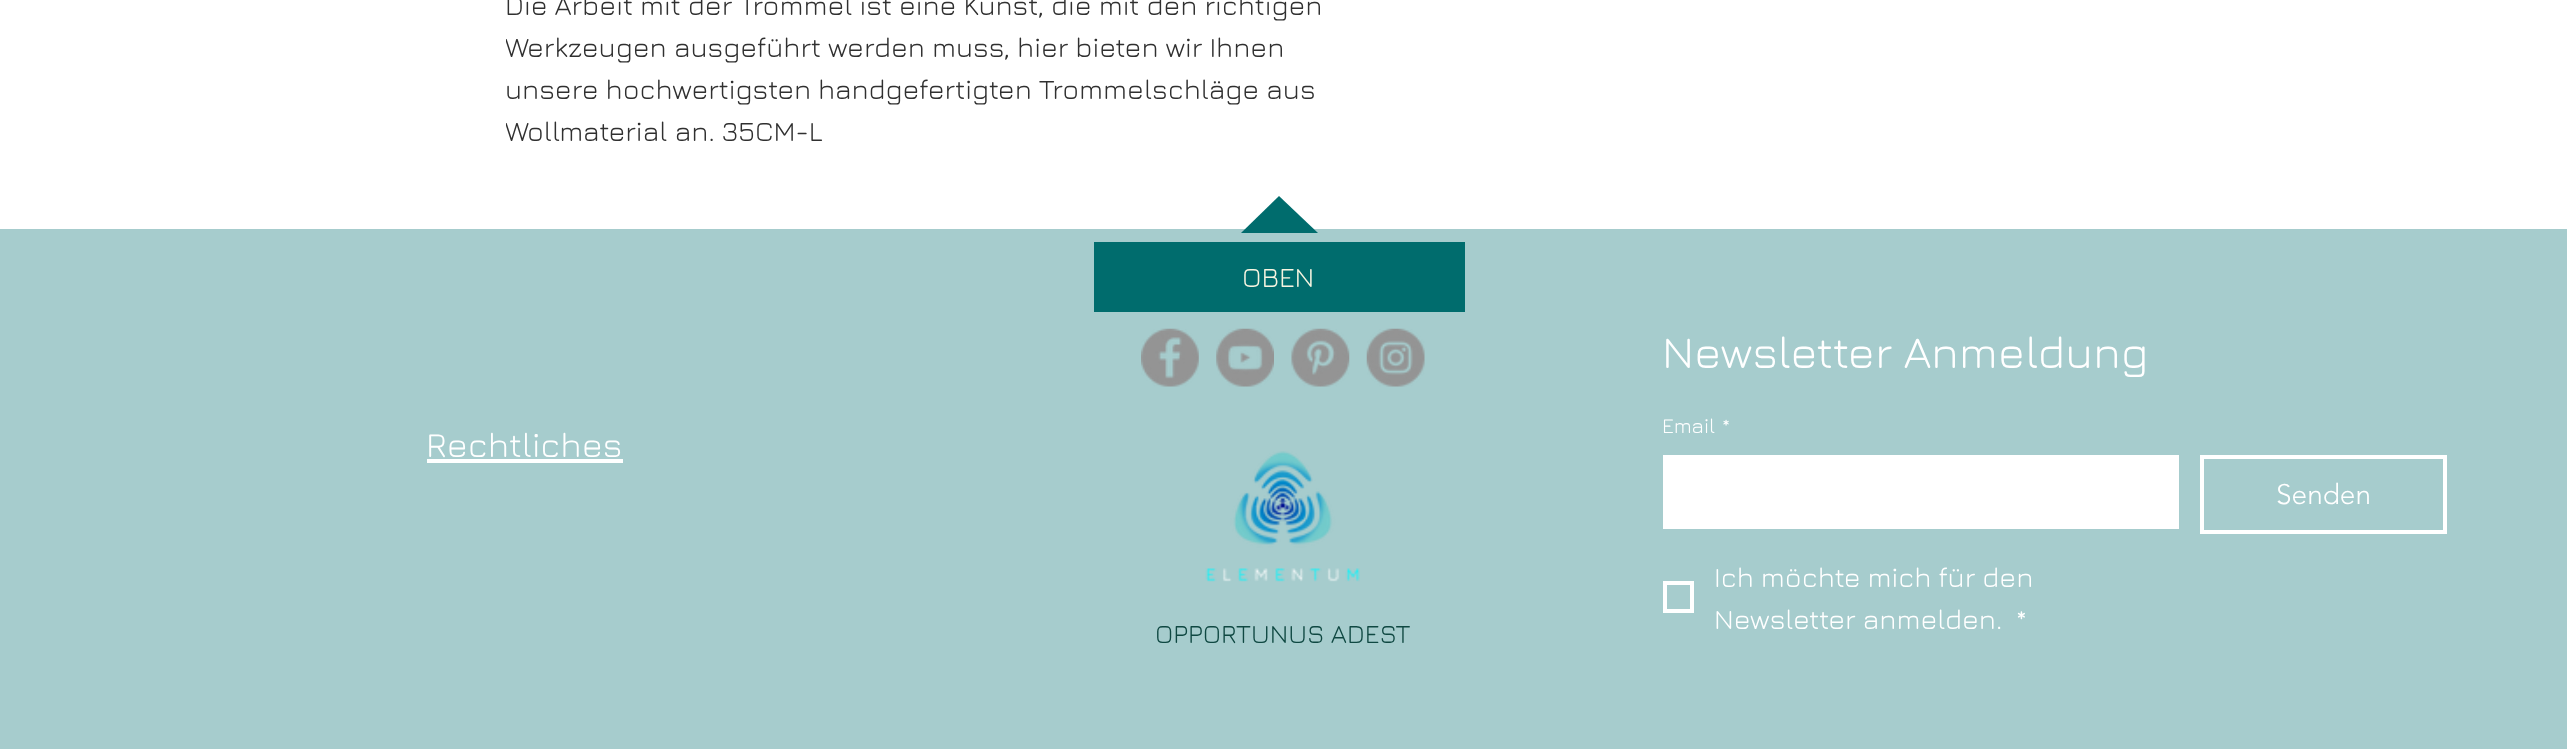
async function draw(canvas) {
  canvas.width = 2567;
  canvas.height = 749;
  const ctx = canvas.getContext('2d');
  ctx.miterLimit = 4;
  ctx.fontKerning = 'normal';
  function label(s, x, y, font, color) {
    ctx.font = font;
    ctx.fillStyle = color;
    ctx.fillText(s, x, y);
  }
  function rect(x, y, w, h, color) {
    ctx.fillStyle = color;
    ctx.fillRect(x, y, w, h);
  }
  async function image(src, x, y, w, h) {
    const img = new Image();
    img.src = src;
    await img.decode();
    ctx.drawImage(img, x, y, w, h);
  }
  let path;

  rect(0, 0, 2567, 749, '#fff');
  label('Die Arbeit mit der Trommel ist eine Kunst, die mit den richtigen', 505, 15, '28px Jura', '#303030');
  ctx.save();
  ctx.beginPath();
  ctx.rect(506, 0, 875, 151);
  ctx.clip();
  label('Werkzeugen ausgeführt werden muss, hier bieten wir Ihnen', 505, 57, '28px Jura', '#303030');
  ctx.restore();
  label('unsere hochwertigsten handgefertigten Trommelschläge aus', 505, 99, '28px Jura', '#303030');
  ctx.save();
  ctx.beginPath();
  ctx.rect(506, 0, 875, 151);
  ctx.clip();
  label('Wollmaterial an. 35CM-L', 505, 141, '28px Jura', '#303030');
  ctx.restore();
  rect(0, 229, 2567, 520, '#a6cccd');
  label('Rechtliches', 426, 457, '35px Jura', '#fff');
  rect(427, 459, 196, 4, '#fff');
  ctx.fillStyle = '#006c6d';
  path = new Path2D('M1279 196L1318 233H1241Z');
  ctx.fill(path);
  rect(1094, 242, 371, 70, '#006c6d');
  label('OBEN', 1242, 287, '28px Jura', '#f7f5e1');
  await image('assets/img1.png', 1141, 328, 58, 59);
  await image('assets/img2.png', 1216, 328, 58, 59);
  await image('assets/img3.png', 1291, 328, 59, 59);
  await image('assets/img4.png', 1366, 328, 59, 59);
  await image('assets/img5.png', 1205, 451, 155, 131);
  label('OPPORTUNUS ADEST', 1155, 643, '26.25px Jura', '#0f4842');
  label('Newsletter Anmeldung', 1662, 368, '45.5px Jura', '#fff');
  label('Email', 1662, 433, '21px Jura', '#fff');
  label('*', 1722, 433, '21px Jura', '#fff');
  rect(1663, 455, 516, 74, '#fff');
  ctx.strokeStyle = '#fff';
  ctx.lineWidth = 4;
  ctx.strokeRect(2202, 457, 243, 75);
  label('Senden', 2276, 504, '300 28px "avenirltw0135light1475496"', '#fff');
  ctx.strokeRect(1665, 583, 27, 28);
  label('Ich möchte mich für den', 1714, 587, '28px Jura', '#fff');
  label('Newsletter anmelden.', 1714, 629, '28px Jura', '#fff');
  label('*', 2016, 629, '28px Jura', '#fff');
}

draw(document.querySelector('canvas'));
